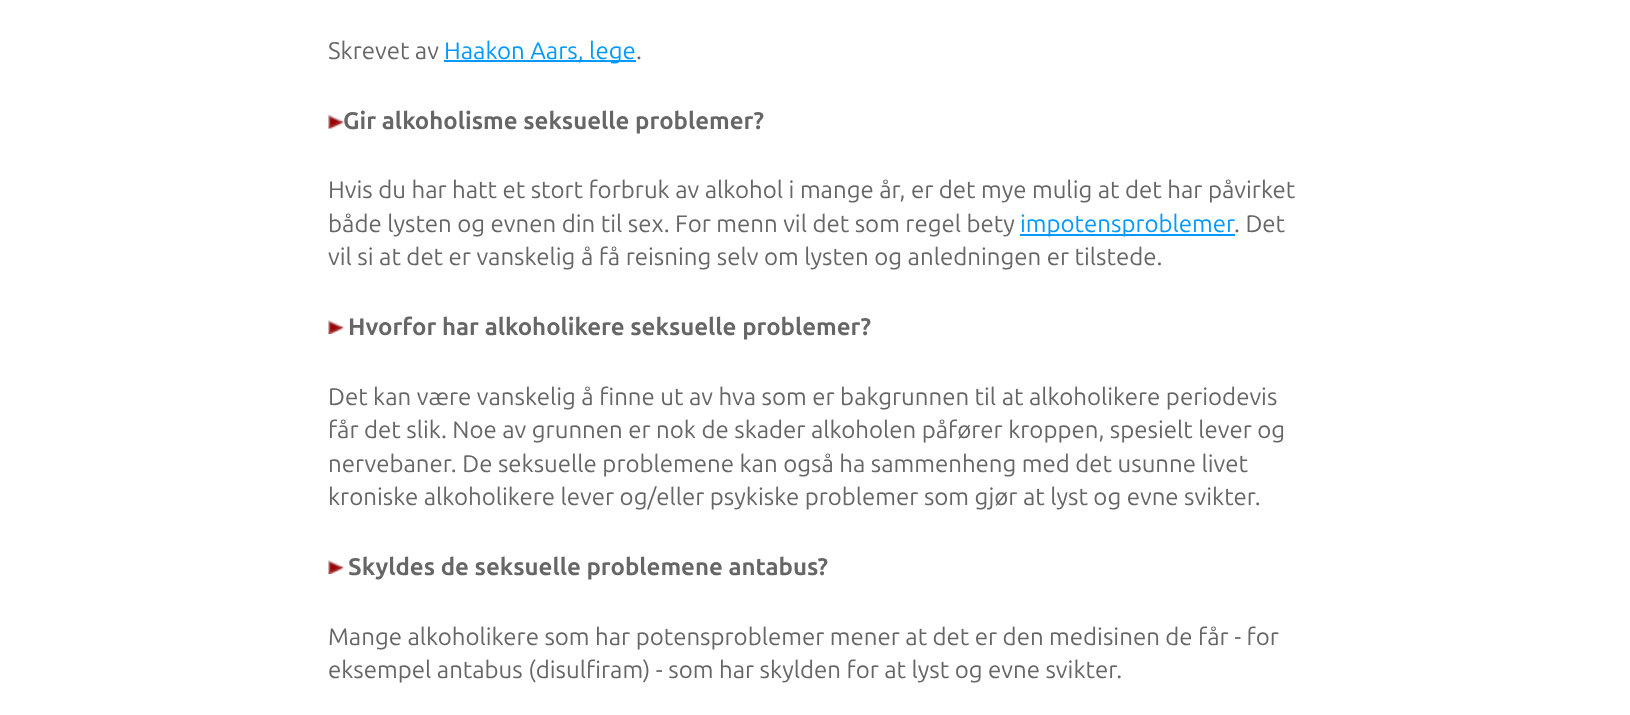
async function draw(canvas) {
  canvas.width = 1630;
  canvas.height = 715;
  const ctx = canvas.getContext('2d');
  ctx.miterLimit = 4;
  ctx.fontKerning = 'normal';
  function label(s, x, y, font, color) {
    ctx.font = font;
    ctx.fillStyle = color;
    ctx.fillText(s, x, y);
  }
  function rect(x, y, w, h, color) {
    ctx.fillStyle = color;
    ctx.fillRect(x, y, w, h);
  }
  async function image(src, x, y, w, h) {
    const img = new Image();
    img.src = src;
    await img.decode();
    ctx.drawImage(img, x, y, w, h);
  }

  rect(0, 0, 1630, 715, '#fff');
  label('Skrevet av', 328, 59, '24px Ubuntu', '#666');
  rect(444, 60, 192, 2, '#09f');
  label('Haakon Aars, lege', 444, 59, '24px Ubuntu', '#09f');
  label('.', 636, 59, '24px Ubuntu', '#666');
  await image('assets/img1.png', 328, 115, 16, 14);
  label('Gir alkoholisme seksuelle problemer?', 343, 129, 'bold 24px Ubuntu', '#666');
  label('Hvis du har hatt et stort forbruk av alkohol i mange år, er det mye mulig at det har påvirket', 328, 198, '24px Ubuntu', '#666');
  label('både lysten og evnen din til sex. For menn vil det som regel bety', 328, 232, '24px Ubuntu', '#666');
  rect(1020, 234, 215, 2, '#09f');
  label('impotensproblemer', 1020, 232, '24px Ubuntu', '#09f');
  label('. Det', 1234, 232, '24px Ubuntu', '#666');
  label('vil si at det er vanskelig å få reisning selv om lysten og anledningen er tilstede.', 328, 265, '24px Ubuntu', '#666');
  await image('assets/img2.png', 328, 320, 16, 14);
  label('Hvorfor har alkoholikere seksuelle problemer?', 348, 335, 'bold 24px Ubuntu', '#666');
  label('Det kan være vanskelig å finne ut av hva som er bakgrunnen til at alkoholikere periodevis', 328, 405, '24px Ubuntu', '#666');
  label('får det slik. Noe av grunnen er nok de skader alkoholen påfører kroppen, spesielt lever og', 328, 438, '24px Ubuntu', '#666');
  label('nervebaner. De seksuelle problemene kan også ha sammenheng med det usunne livet', 328, 472, '24px Ubuntu', '#666');
  label('kroniske alkoholikere lever og/eller psykiske problemer som gjør at lyst og evne svikter.', 328, 505, '24px Ubuntu', '#666');
  await image('assets/img2.png', 328, 560, 16, 14);
  label('Skyldes de seksuelle problemene antabus?', 348, 575, 'bold 24px Ubuntu', '#666');
  label('Mange alkoholikere som har potensproblemer mener at det er den medisinen de får - for', 328, 645, '24px Ubuntu', '#666');
  label('eksempel antabus (disulfiram) - som har skylden for at lyst og evne svikter.', 328, 678, '24px Ubuntu', '#666');
}

draw(document.querySelector('canvas'));
